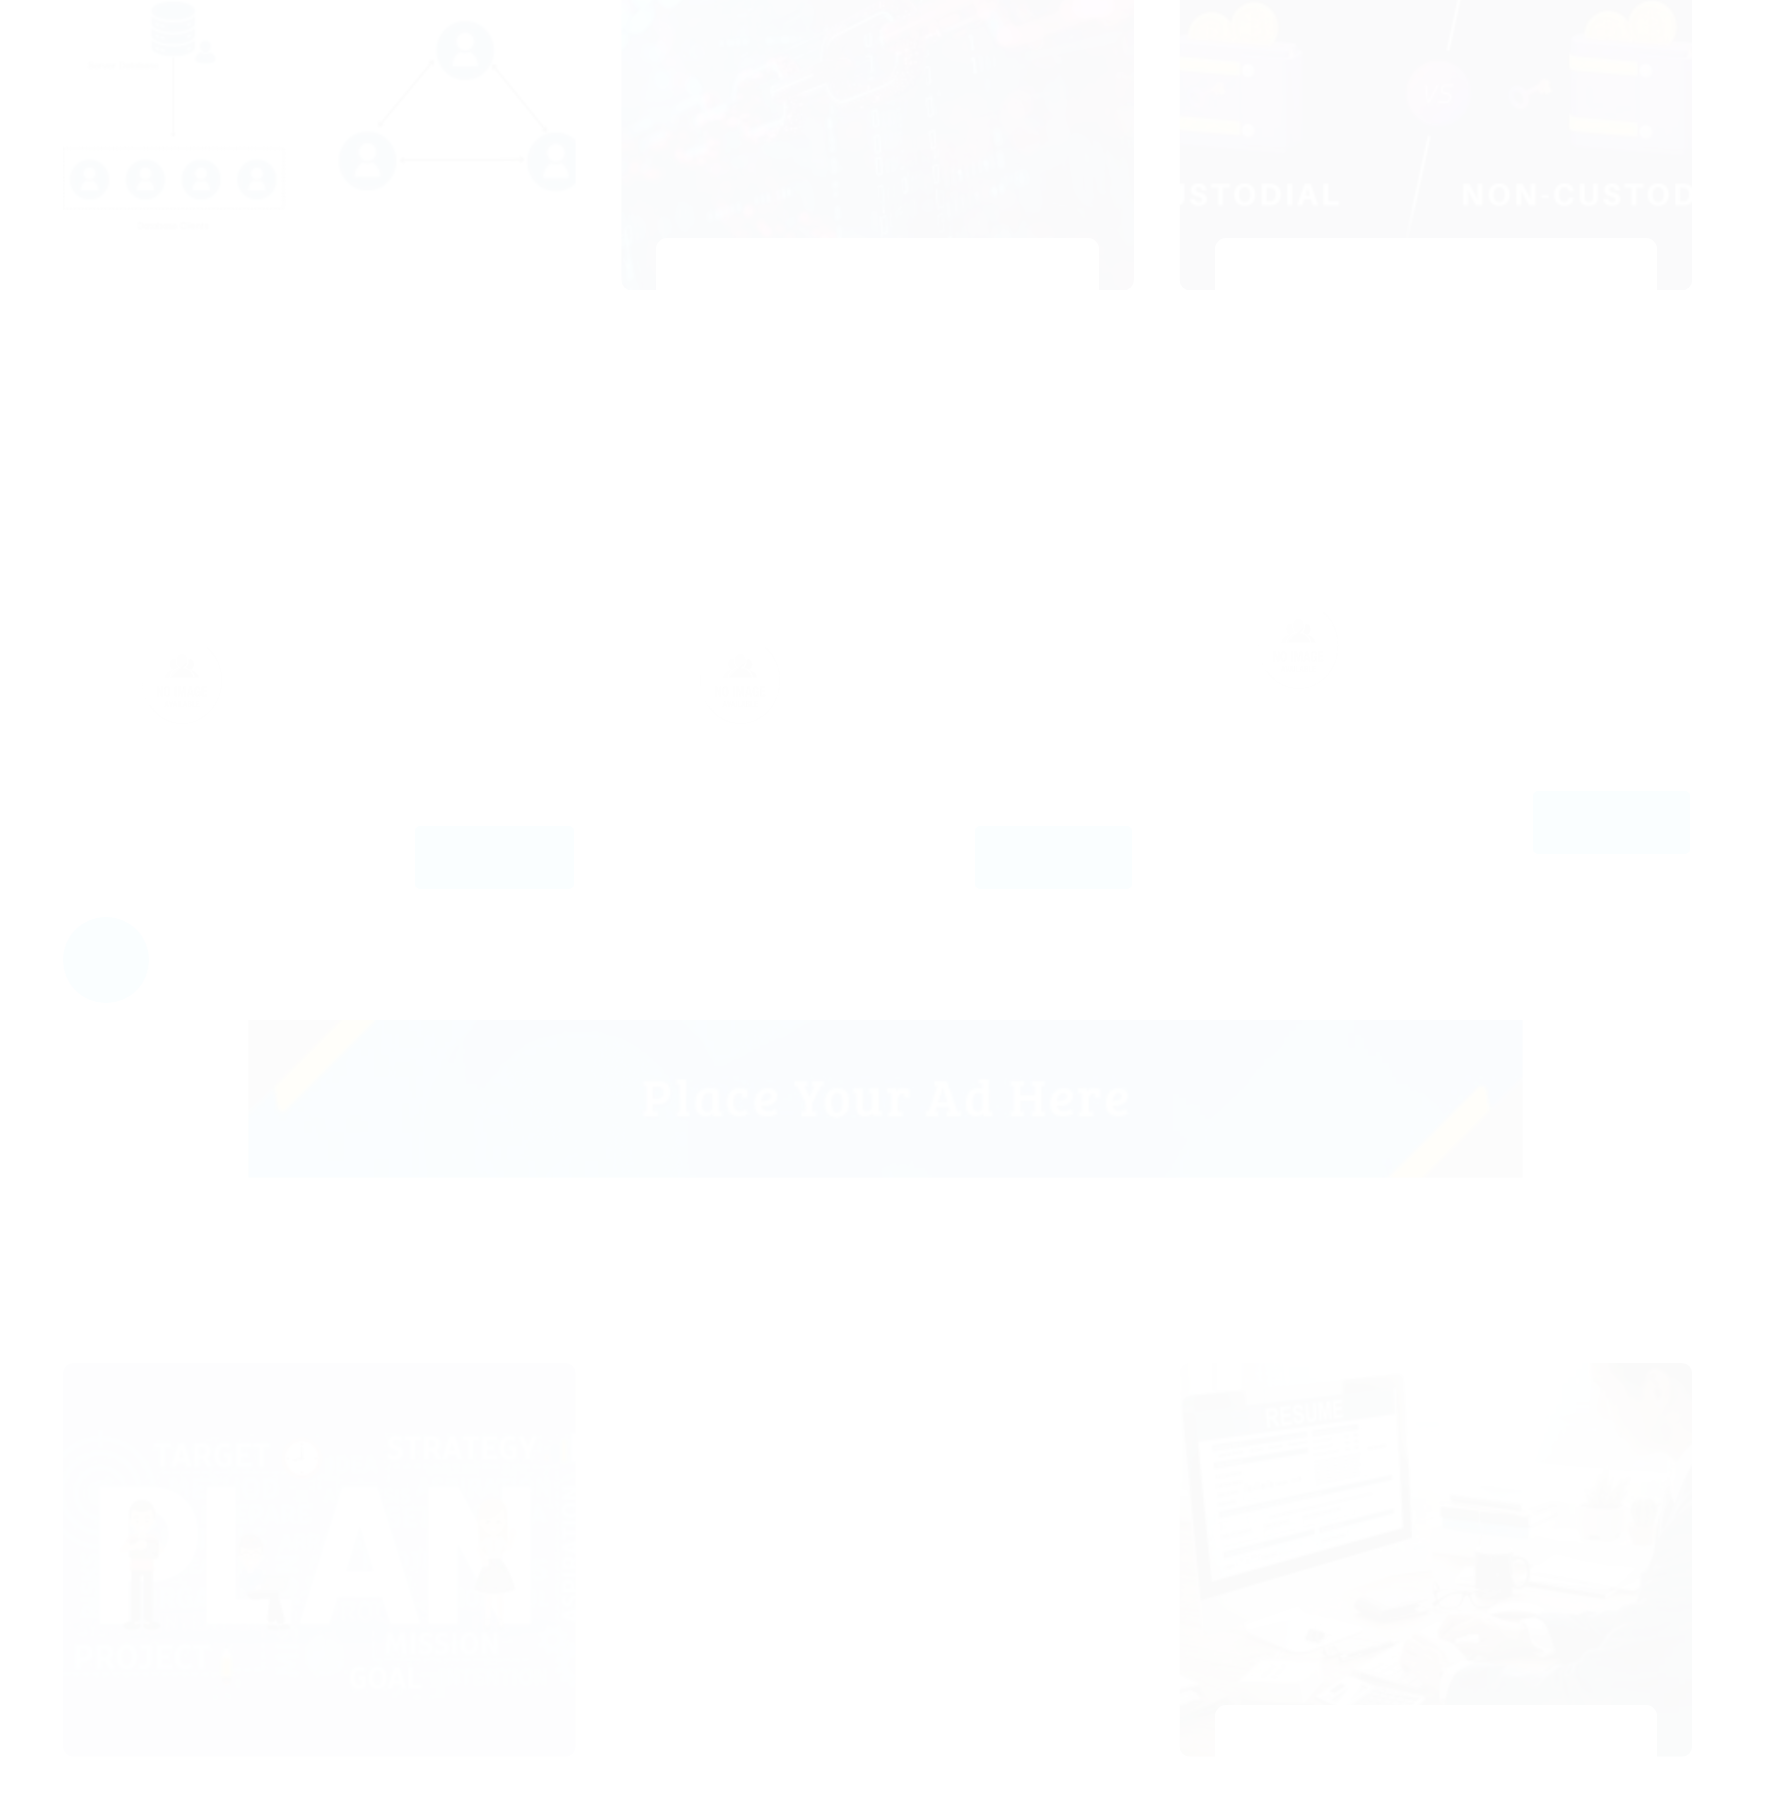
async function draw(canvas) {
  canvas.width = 1769;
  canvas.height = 1813;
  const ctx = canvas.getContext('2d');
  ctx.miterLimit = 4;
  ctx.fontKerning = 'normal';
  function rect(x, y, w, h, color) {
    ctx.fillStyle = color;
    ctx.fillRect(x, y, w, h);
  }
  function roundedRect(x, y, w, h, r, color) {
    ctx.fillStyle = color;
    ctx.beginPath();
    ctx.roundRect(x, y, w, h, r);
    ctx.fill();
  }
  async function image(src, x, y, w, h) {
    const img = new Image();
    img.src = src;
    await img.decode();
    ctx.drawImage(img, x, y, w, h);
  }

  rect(0, 0, 1769, 1813, '#fff');
  await image('assets/img1.png', 63, 0, 513, 233);
  await image('assets/img2.png', 142, 637, 80, 87);
  ctx.fillStyle = '#fafeff';
  ctx.beginPath();
  ctx.roundRect(414, 825, 161, 65, 6);
  ctx.fill();
  ctx.strokeStyle = '#fff';
  ctx.lineWidth = 2;
  ctx.stroke();
  await image('assets/img3.png', 621, 0, 513, 291);
  roundedRect(656, 238, 443, 627, 11, '#fff');
  await image('assets/img4.png', 700, 637, 81, 87);
  ctx.fillStyle = '#fafeff';
  ctx.beginPath();
  ctx.roundRect(974, 825, 159, 65, 6);
  ctx.fill();
  ctx.stroke();
  await image('assets/img5.png', 1179, 0, 514, 291);
  roundedRect(1215, 238, 442, 592, 11, '#fff');
  await image('assets/img6.png', 1258, 602, 81, 87);
  ctx.fillStyle = '#fafeff';
  ctx.beginPath();
  ctx.roundRect(1532, 790, 159, 65, 6);
  ctx.fill();
  ctx.stroke();
  ctx.beginPath();
  ctx.arc(106, 960, 43, 0, 2 * Math.PI);
  ctx.fill();
  await image('assets/img7.png', 248, 1020, 1275, 158);
  await image('assets/img8.png', 63, 1363, 513, 394);
  await image('assets/img9.png', 1179, 1363, 514, 394);
  roundedRect(1215, 1705, 442, 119, 11, '#fff');
}

draw(document.querySelector('canvas'));
